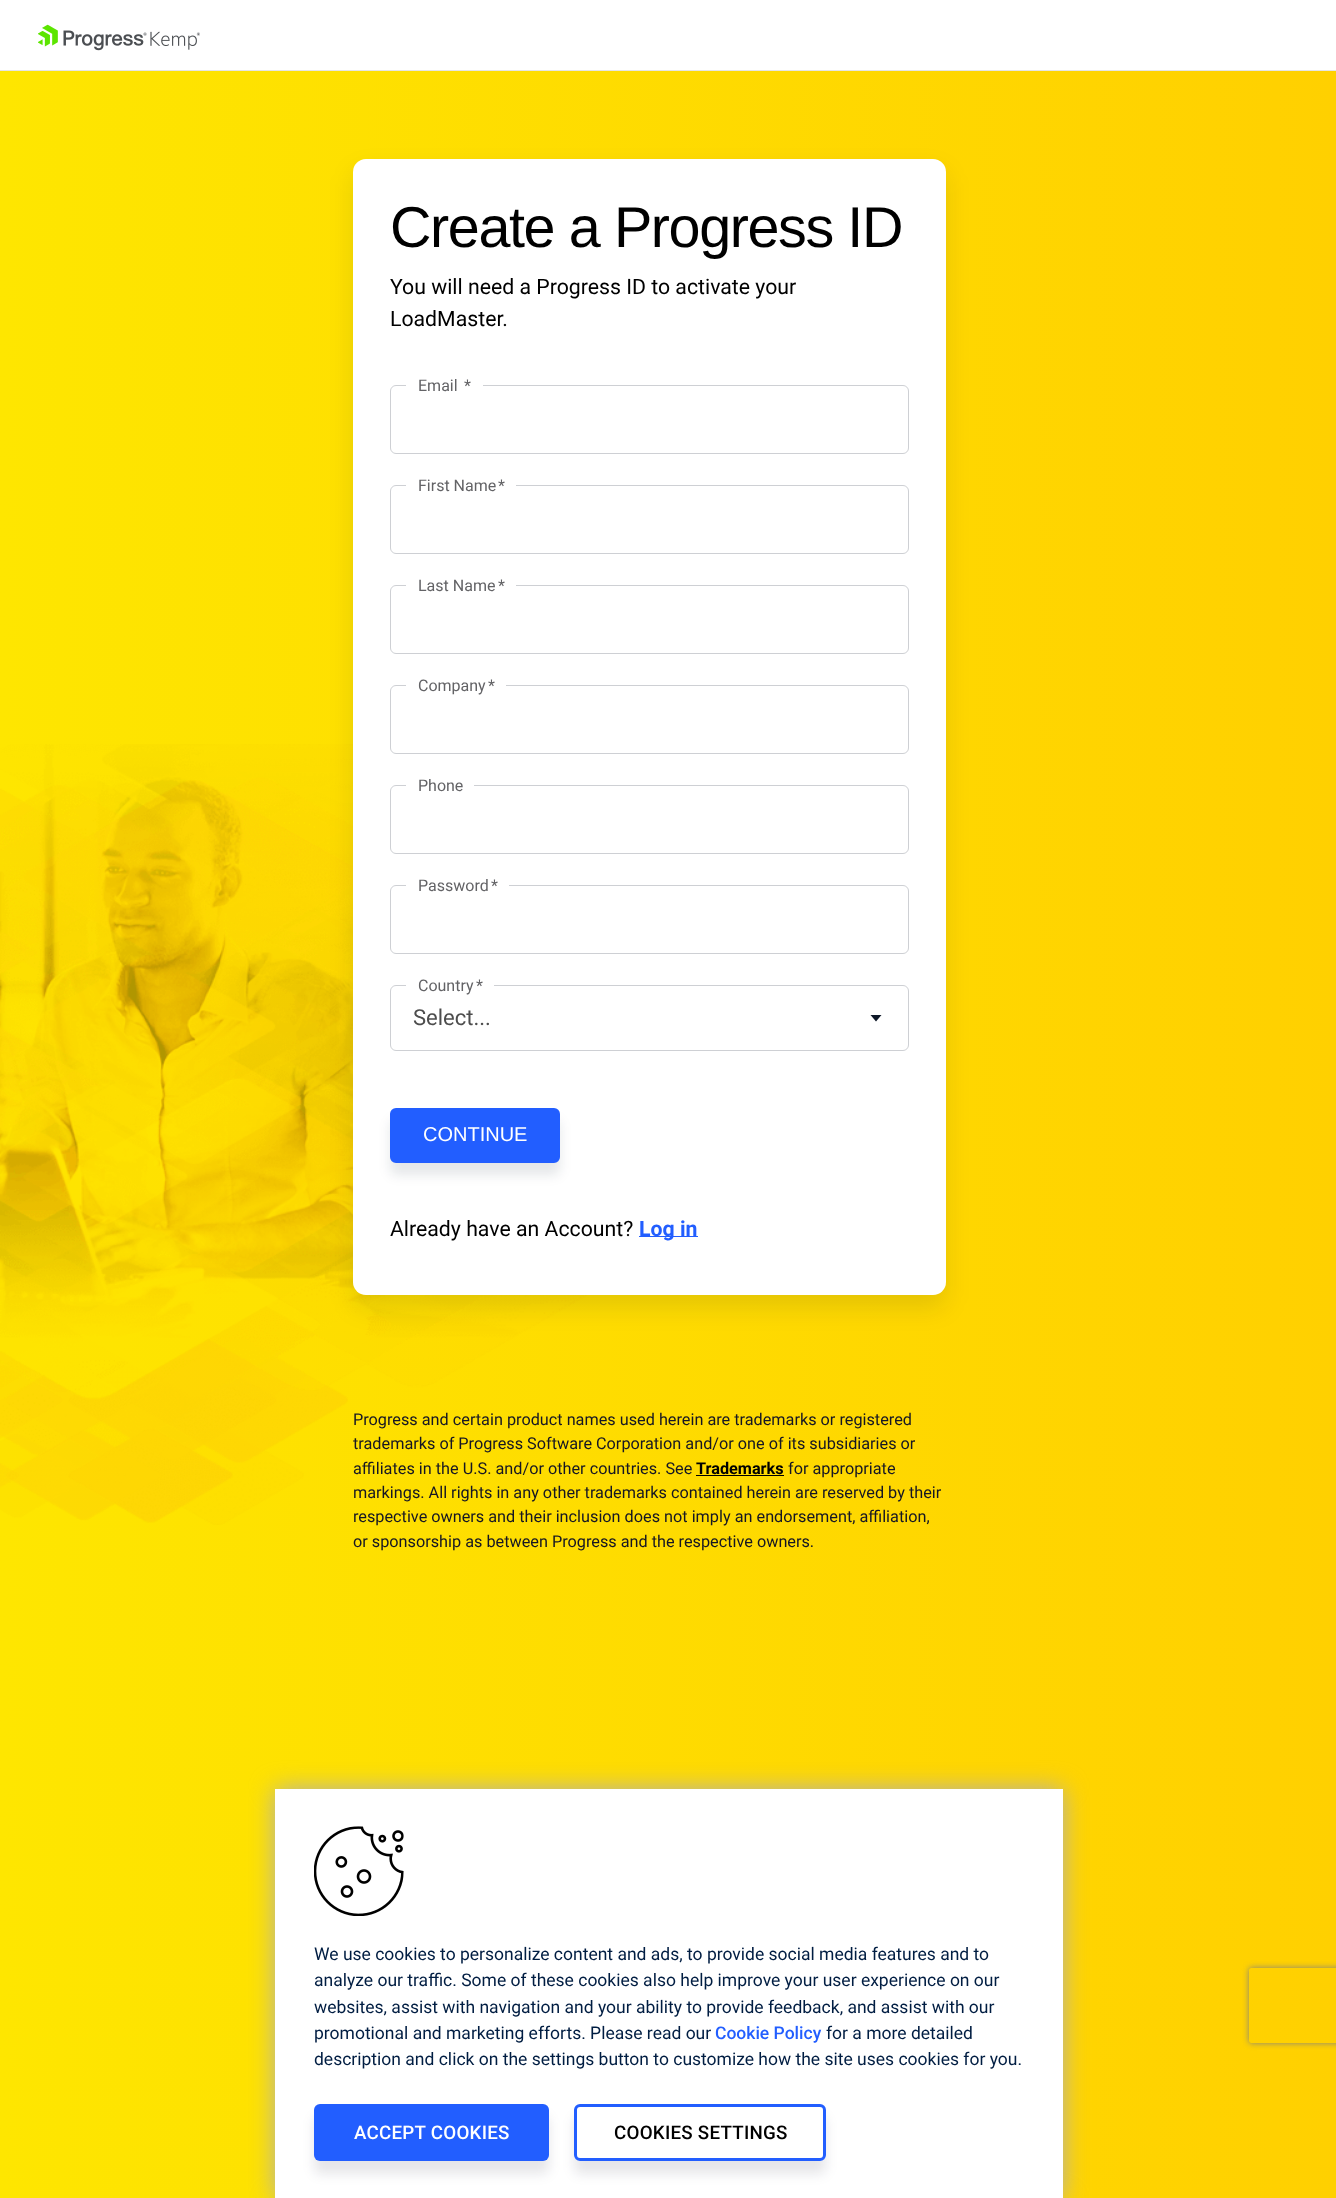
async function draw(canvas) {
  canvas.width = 1336;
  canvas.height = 2198;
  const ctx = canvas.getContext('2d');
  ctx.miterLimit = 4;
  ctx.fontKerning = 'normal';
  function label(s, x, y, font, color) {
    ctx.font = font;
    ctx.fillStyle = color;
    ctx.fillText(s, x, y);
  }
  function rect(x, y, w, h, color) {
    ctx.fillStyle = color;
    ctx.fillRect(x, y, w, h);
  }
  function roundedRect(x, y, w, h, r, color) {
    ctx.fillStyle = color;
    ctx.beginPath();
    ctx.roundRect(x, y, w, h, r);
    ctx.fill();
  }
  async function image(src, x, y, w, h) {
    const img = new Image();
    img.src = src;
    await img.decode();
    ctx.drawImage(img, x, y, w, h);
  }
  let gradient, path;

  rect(0, 0, 1336, 2198, '#fff');
  rect(0, 70, 1336, 1, '#e5e5e5');
  await image('assets/img1.png', 38, 24, 162, 27);
  gradient = ctx.createLinearGradient(0, 1135, 1336, 1135);
  gradient.addColorStop(0, '#fee600');
  gradient.addColorStop(1, '#ffd000');
  ctx.fillStyle = gradient;
  ctx.fillRect(0, 71, 1336, 2127);
  await image('assets/img2.png', 0, 744, 587, 781);
  ctx.fillStyle = '#04142b1a';
  ctx.filter = 'blur(12.5px)';
  ctx.beginPath();
  ctx.roundRect(353, 171, 593, 1137, 13);
  ctx.fill();
  ctx.filter = 'none';
  roundedRect(353, 159, 593, 1136, 13, '#fff');
  ctx.letterSpacing = '-1.4px';
  label('Create a Progress ID', 390, 247, '57.5px Liberation Sans', '#000');
  ctx.letterSpacing = '0px';
  label('You will need a Progress ID to activate your', 390, 294, '21.25px Roboto', '#000');
  label('LoadMaster.', 390, 326, '21.25px Roboto', '#000');
  ctx.beginPath();
  ctx.roundRect(390.5, 385.5, 518, 68, 5.5);
  ctx.strokeStyle = '#ced0d4';
  ctx.stroke();
  rect(406, 385, 77, 1, '#fff');
  label('Email', 418, 391, '16px Roboto', '#636366');
  label('*', 464, 391, '16px Roboto', '#636366');
  ctx.beginPath();
  ctx.roundRect(390.5, 485.5, 518, 68, 5.5);
  ctx.stroke();
  rect(406, 485, 110, 1, '#fff');
  label('First Name', 418, 491, '16px Roboto', '#636366');
  label('*', 498, 491, '16px Roboto', '#636366');
  ctx.beginPath();
  ctx.roundRect(390.5, 585.5, 518, 68, 5.5);
  ctx.stroke();
  rect(406, 585, 110, 1, '#fff');
  label('Last Name', 418, 591, '16px Roboto', '#636366');
  label('*', 498, 591, '16px Roboto', '#636366');
  ctx.beginPath();
  ctx.roundRect(390.5, 685.5, 518, 68, 5.5);
  ctx.stroke();
  rect(406, 685, 100, 1, '#fff');
  label('Company', 418, 691, '16px Roboto', '#636366');
  label('*', 488, 691, '16px Roboto', '#636366');
  ctx.beginPath();
  ctx.roundRect(390.5, 785.5, 518, 68, 5.5);
  ctx.stroke();
  rect(406, 785, 68, 1, '#fff');
  label('Phone', 418, 791, '16px Roboto', '#636366');
  ctx.beginPath();
  ctx.roundRect(390.5, 885.5, 518, 68, 5.5);
  ctx.stroke();
  rect(406, 885, 103, 1, '#fff');
  label('Password', 418, 891, '16px Roboto', '#636366');
  label('*', 491, 891, '16px Roboto', '#636366');
  ctx.fillStyle = '#0e1828';
  path = new Path2D('M870.5 1015H881.5L876 1021.5Z');
  ctx.fill(path);
  ctx.beginPath();
  ctx.roundRect(390.5, 985.5, 518, 65, 5.5);
  ctx.stroke();
  rect(406, 985, 88, 1, '#fff');
  label('Country', 418, 991, '16px Roboto', '#636366');
  label('*', 476, 991, '16px Roboto', '#636366');
  label('Select...', 413, 1025, '22px Roboto', '#4d4d4d');
  ctx.fillStyle = '#04142b1a';
  ctx.filter = 'blur(6px)';
  ctx.beginPath();
  ctx.roundRect(390, 1120, 170, 55, 6);
  ctx.fill();
  ctx.filter = 'none';
  ctx.fillStyle = '#225eff';
  ctx.beginPath();
  ctx.roundRect(391.5, 1109.5, 167, 52, 4.5);
  ctx.fill();
  ctx.strokeStyle = '#225eff';
  ctx.lineWidth = 3;
  ctx.stroke();
  label('CONTINUE', 423, 1141, '20px Liberation Sans', '#fff');
  label('Already have an Account?', 390, 1236, '21.25px Roboto', '#000');
  rect(639, 1236, 59, 1, '#225eff');
  label('Log in', 639, 1236, 'bold 21.25px Roboto', '#225eff');
  label('Progress and certain product names used herein are trademarks or registered', 353, 1425, '16.25px Roboto', '#151624');
  label('trademarks of Progress Software Corporation and/or one of its subsidiaries or', 353, 1449, '16.25px Roboto', '#151624');
  label('affiliates in the U.S. and/or other countries. See', 353, 1474, '16.25px Roboto', '#151624');
  label('Trademarks', 696, 1474, 'bold 16.25px Roboto', '#000');
  rect(696, 1475, 88, 1, '#000');
  label('for appropriate', 788, 1474, '16.25px Roboto', '#151624');
  label('markings. All rights in any other trademarks contained herein are reserved by their', 353, 1498, '16.25px Roboto', '#151624');
  label('respective owners and their inclusion does not imply an endorsement, affiliation,', 353, 1522, '16.25px Roboto', '#151624');
  label('or sponsorship as between Progress and the respective owners.', 353, 1547, '16.25px Roboto', '#151624');
  ctx.fillStyle = '#b0afaf';
  ctx.filter = 'blur(12.5px)';
  ctx.beginPath();
  ctx.rect(275, 1789, 788, 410);
  ctx.fill();
  ctx.filter = 'none';
  rect(275, 1789, 788, 409, '#fff');
  await image('assets/img3.png', 314, 1826, 90, 90);
  label('We use cookies to personalize content and ads, to provide social media features and to', 314, 1960, '17.5px Roboto', '#001d42');
  label('analyze our traffic. Some of these cookies also help improve your user experience on our', 314, 1986, '17.5px Roboto', '#001d42');
  label('websites, assist with navigation and your ability to provide feedback, and assist with our', 314, 2013, '17.5px Roboto', '#001d42');
  label('promotional and marketing efforts. Please read our', 314, 2039, '17.5px Roboto', '#001d42');
  label('Cookie Policy', 715, 2039, '500 17.5px Roboto', '#225eff');
  label('for a more detailed', 826, 2039, '17.5px Roboto', '#001d42');
  label('description and click on the settings button to customize how the site uses cookies for you.', 314, 2065, '17.5px Roboto', '#001d42');
  ctx.fillStyle = '#070c271a';
  ctx.filter = 'blur(6px)';
  ctx.beginPath();
  ctx.roundRect(314, 2116, 235, 58, 6);
  ctx.fill();
  ctx.filter = 'none';
  roundedRect(314, 2104, 235, 57, 6, '#225eff');
  ctx.letterSpacing = '0.25px';
  label('ACCEPT COOKIES', 354, 2139, '500 18.75px Roboto', '#fff');
  ctx.save();
  path = new Path2D('M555 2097H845V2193H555ZM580 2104H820C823.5 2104 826 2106.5 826 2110V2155C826 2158.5 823.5 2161 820 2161H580C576.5 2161 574 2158.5 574 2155V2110C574 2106.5 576.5 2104 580 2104Z');
  ctx.clip(path, 'evenodd');
  ctx.fillStyle = '#070c271a';
  ctx.filter = 'blur(6px)';
  ctx.beginPath();
  ctx.roundRect(574, 2116, 252, 58, 6);
  ctx.fill();
  ctx.filter = 'none';
  ctx.restore();
  ctx.beginPath();
  ctx.roundRect(575.5, 2105.5, 249, 54, 4.5);
  ctx.stroke();
  label('COOKIES SETTINGS', 614, 2139, '500 18.75px Roboto', '#000');
  ctx.save();
  path = new Path2D('M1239 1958H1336V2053H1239ZM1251.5 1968H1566.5C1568 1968 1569 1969 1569 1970.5V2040.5C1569 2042 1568 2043 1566.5 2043H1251.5C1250 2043 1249 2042 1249 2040.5V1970.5C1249 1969 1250 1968 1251.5 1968Z');
  ctx.clip(path, 'evenodd');
  ctx.fillStyle = '#808080';
  ctx.filter = 'blur(3px)';
  ctx.beginPath();
  ctx.roundRect(1249, 1968, 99, 75, 2.5);
  ctx.fill();
  ctx.filter = 'none';
  ctx.restore();
}

draw(document.querySelector('canvas'));
